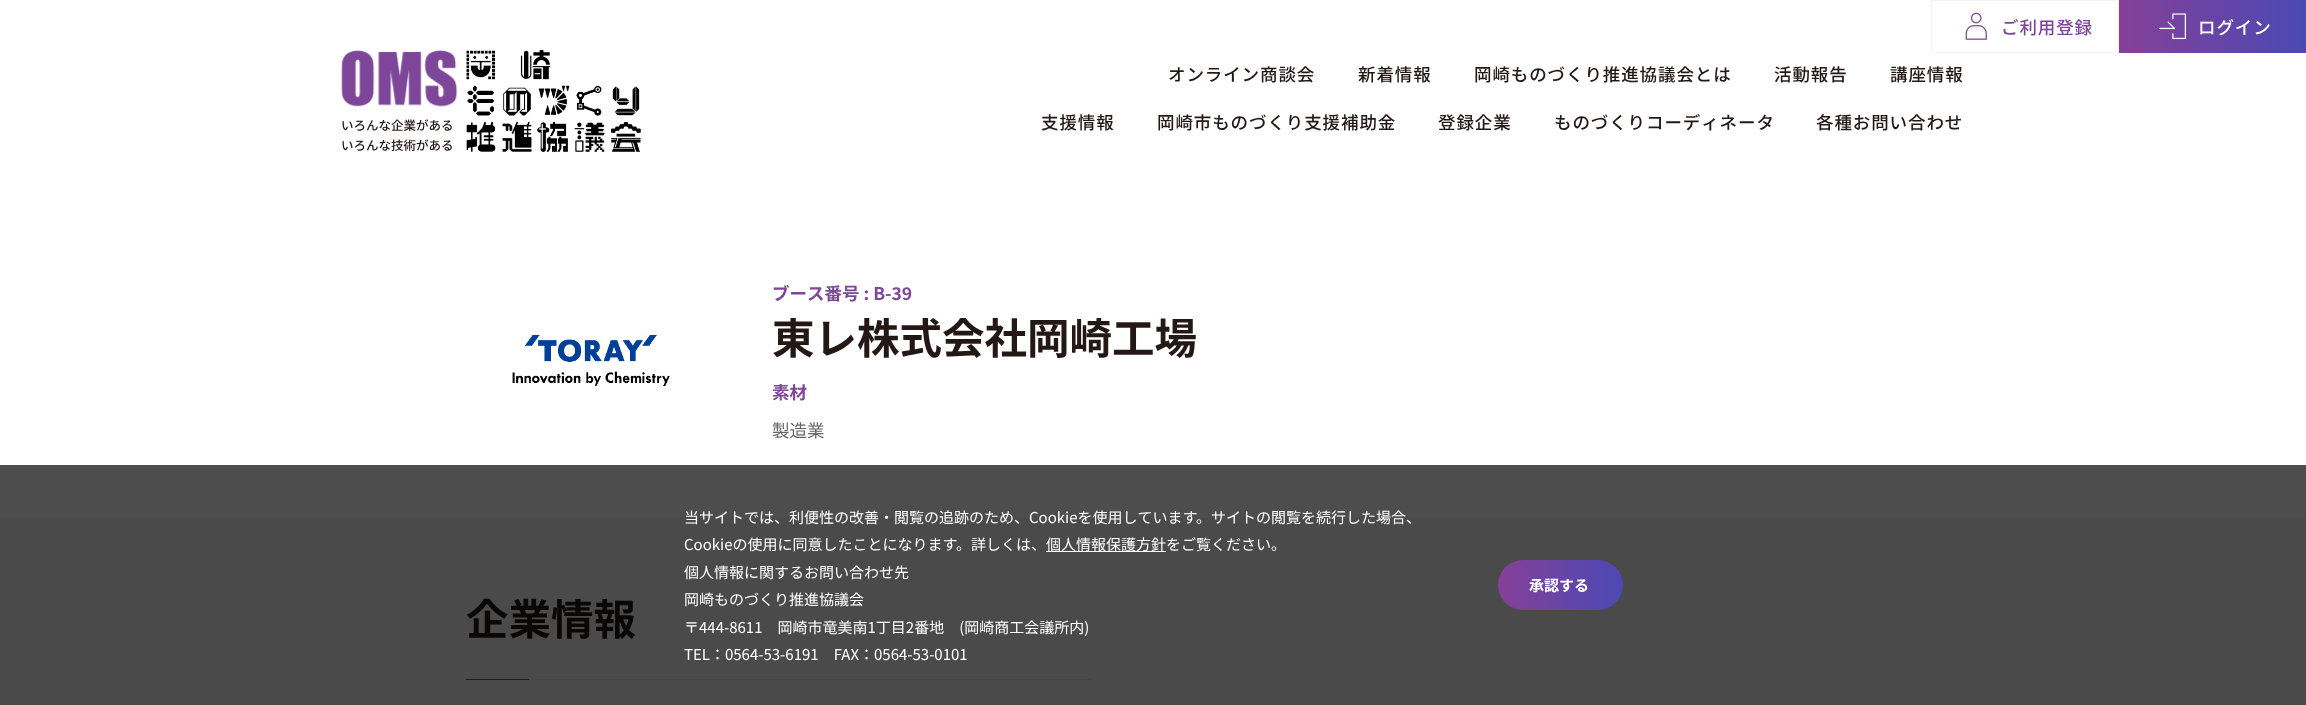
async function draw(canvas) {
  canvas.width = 2306;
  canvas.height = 705;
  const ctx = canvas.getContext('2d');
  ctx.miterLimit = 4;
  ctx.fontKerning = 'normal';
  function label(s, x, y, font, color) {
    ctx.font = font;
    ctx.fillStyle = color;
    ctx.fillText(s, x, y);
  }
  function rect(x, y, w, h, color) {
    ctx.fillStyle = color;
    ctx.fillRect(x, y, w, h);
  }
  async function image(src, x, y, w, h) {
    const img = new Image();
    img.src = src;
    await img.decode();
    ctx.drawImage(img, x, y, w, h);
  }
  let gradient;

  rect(0, 0, 2306, 705, '#fff');
  rect(0, 465, 2306, 53, '#4d4d4d');
  ctx.strokeStyle = '#f5f5f5';
  ctx.strokeRect(1931.5, 0.5, 187, 52);
  await image('assets/img1.png', 1965, 12, 22, 28);
  ctx.letterSpacing = '0.9px';
  label('ご利用登録', 2001, 34, '500 17.5px Noto Sans JP', '#7d4697');
  gradient = ctx.createLinearGradient(2119, 26, 2306, 26);
  gradient.addColorStop(0, '#854098');
  gradient.addColorStop(1, '#4b49b4');
  ctx.fillStyle = gradient;
  ctx.fillRect(2119, 0, 187, 53);
  await image('assets/img2.png', 2159, 13, 27, 27);
  label('ログイン', 2198, 34, '500 17.5px Noto Sans JP', '#fff');
  label('オンライン商談会', 1168, 81, '500 17.5px Noto Sans JP', '#231815');
  label('新着情報', 1358, 81, '500 17.5px Noto Sans JP', '#231815');
  label('岡崎ものづくり推進協議会とは', 1474, 81, '500 17.5px Noto Sans JP', '#231815');
  label('活動報告', 1774, 81, '500 17.5px Noto Sans JP', '#231815');
  label('講座情報', 1890, 81, '500 17.5px Noto Sans JP', '#231815');
  label('支援情報', 1041, 129, '500 17.5px Noto Sans JP', '#231815');
  label('岡崎市ものづくり支援補助金', 1157, 129, '500 17.5px Noto Sans JP', '#231815');
  label('登録企業', 1438, 129, '500 17.5px Noto Sans JP', '#231815');
  label('ものづくりコーディネータ', 1554, 129, '500 17.5px Noto Sans JP', '#231815');
  label('各種お問い合わせ', 1816, 129, '500 17.5px Noto Sans JP', '#231815');
  await image('assets/img3.png', 341, 50, 117, 57);
  ctx.letterSpacing = '0px';
  label('いろんな企業がある', 341, 130, '500 12.5px Noto Sans JP', '#231815');
  label('いろんな技術がある', 341, 150, '500 12.5px Noto Sans JP', '#231815');
  await image('assets/img4.png', 466, 50, 175, 102);
  await image('assets/img5.png', 512, 334, 158, 53);
  label('ブース番号 : B-39', 772, 300, 'bold 17.5px Noto Sans JP', '#7d4697');
  label('東レ株式会社岡崎工場', 772, 354, 'bold 42.5px Noto Sans JP', '#231815');
  label('素材', 772, 399, 'bold 17.5px Noto Sans JP', '#7d4697');
  label('製造業', 772, 437, '17.5px Noto Sans JP', '#666');
  rect(0, 518, 2306, 187, '#4a4a4a');
  rect(529, 679, 562, 1, '#454543');
  label('企業情報', 466, 635, 'bold 42.5px Noto Sans JP', '#0b0706');
  rect(466, 679, 63, 1, '#26152d');
  label('当サイトでは、利便性の改善・閲覧の追跡のため、Cookieを使用しています。サイトの閲覧を続行した場合、', 684, 523, '15px Noto Sans JP', '#fff');
  label('Cookieの使用に同意したことになります。詳しくは、', 684, 550, '15px Noto Sans JP', '#fff');
  rect(1046, 551, 120, 1, '#fff');
  label('個人情報保護方針をご覧ください。', 1046, 550, '15px Noto Sans JP', '#fff');
  label('個人情報に関するお問い合わせ先', 684, 578, '15px Noto Sans JP', '#fff');
  label('岡崎ものづくり推進協議会', 684, 605, '15px Noto Sans JP', '#fff');
  label('〒444-8611　岡崎市竜美南1丁目2番地　(岡崎商工会議所内)', 684, 633, '15px Noto Sans JP', '#fff');
  label('TEL：0564-53-6191　FAX：0564-53-0101', 684, 660, '15px Noto Sans JP', '#fff');
  gradient = ctx.createLinearGradient(1373, 585, 1623, 585);
  gradient.addColorStop(0, '#854098');
  gradient.addColorStop(0.5, '#854098');
  gradient.addColorStop(1, '#4b49b4');
  ctx.fillStyle = gradient;
  ctx.beginPath();
  ctx.roundRect(1498, 560, 125, 50, 25);
  ctx.fill();
  label('承認する', 1529, 591, 'bold 15px Noto Sans JP', '#fff');
}

draw(document.querySelector('canvas'));
